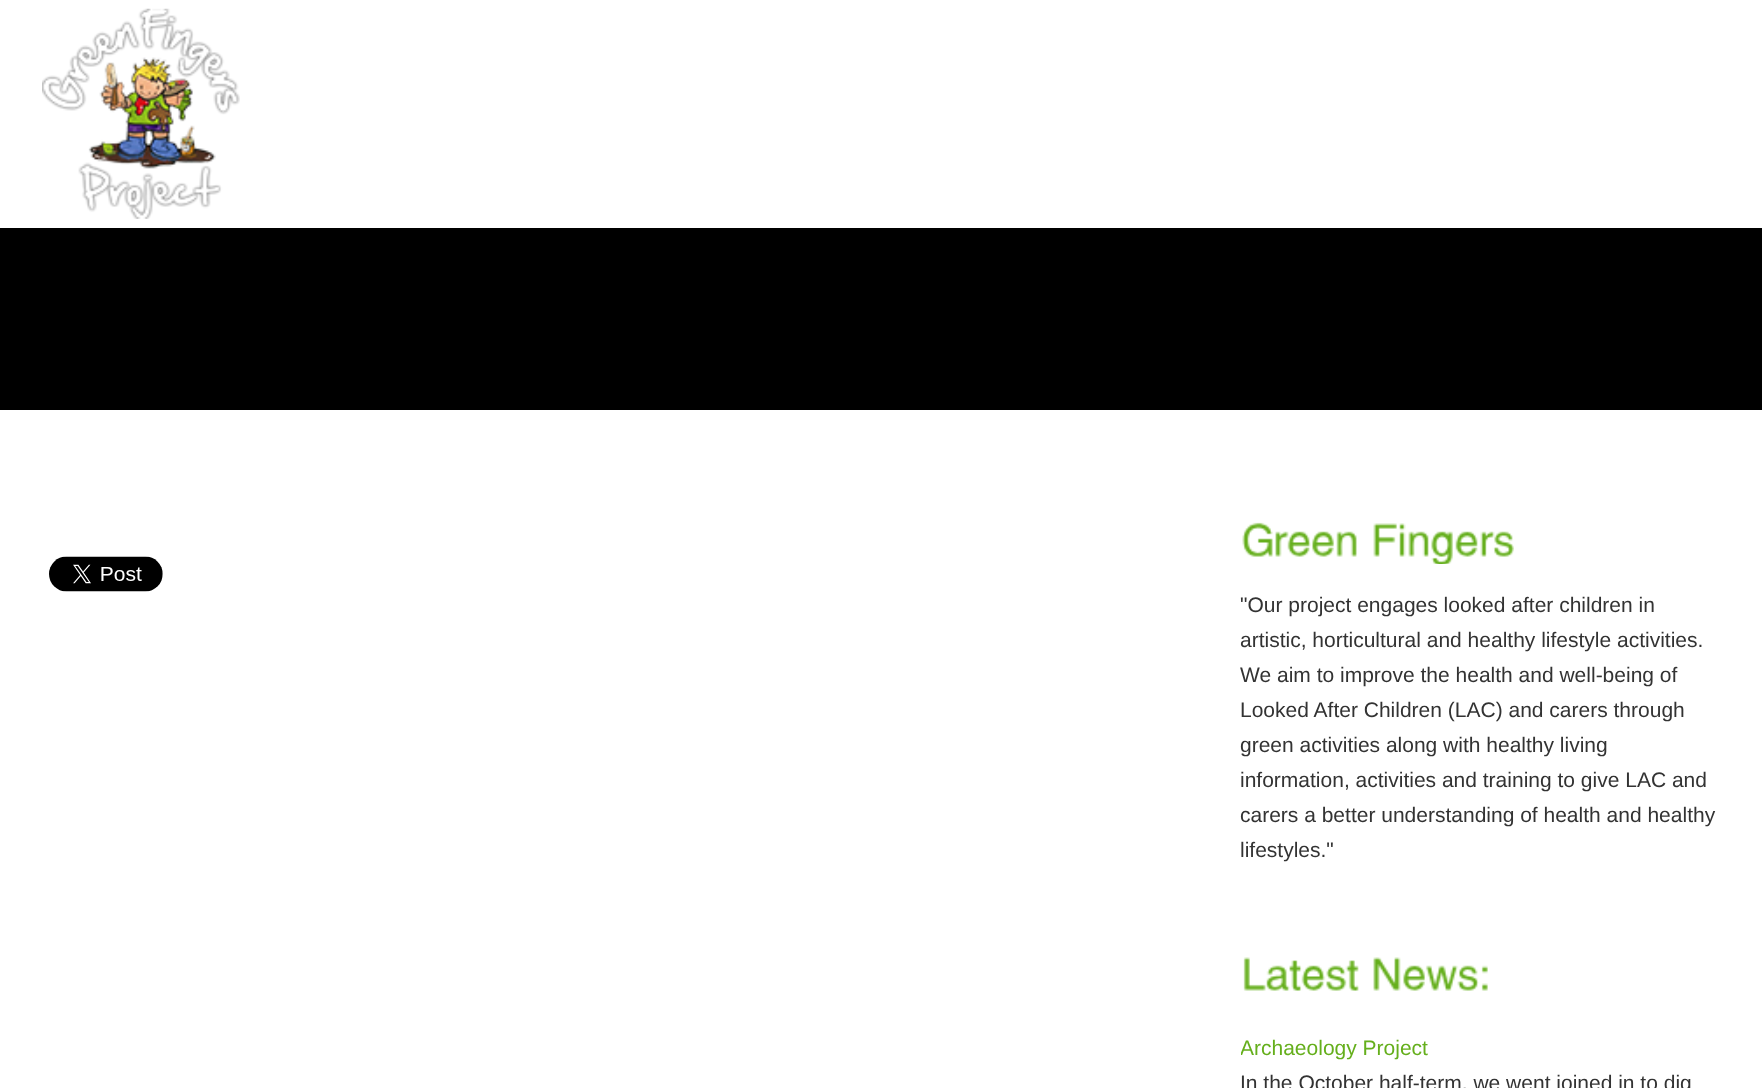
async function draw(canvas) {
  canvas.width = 1762;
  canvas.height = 1088;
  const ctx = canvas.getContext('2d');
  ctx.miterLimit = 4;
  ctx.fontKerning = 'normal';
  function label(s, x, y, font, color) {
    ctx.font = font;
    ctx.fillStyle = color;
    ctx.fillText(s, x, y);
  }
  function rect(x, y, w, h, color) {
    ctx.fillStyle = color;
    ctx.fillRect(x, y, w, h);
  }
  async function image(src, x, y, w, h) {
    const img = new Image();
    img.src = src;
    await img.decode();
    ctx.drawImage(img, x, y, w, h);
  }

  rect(0, 0, 1762, 1088, '#fff');
  await image('assets/img1.png', 42, 8, 198, 211);
  rect(0, 228, 1762, 182, '#000');
  await image('assets/img2.png', 49, 556, 114, 36);
  await image('assets/img3.png', 1242, 522, 115, 35);
  await image('assets/img4.png', 1373, 523, 141, 41);
  label('"Our project engages looked after children in', 1240, 612, '21px Liberation Sans', '#333');
  label('artistic, horticultural and healthy lifestyle activities.', 1240, 647, '21px Liberation Sans', '#333');
  label('We aim to improve the health and well-being of', 1240, 682, '21px Liberation Sans', '#333');
  label('Looked After Children (LAC) and carers through', 1240, 717, '21px Liberation Sans', '#333');
  label('green activities along with healthy living', 1240, 752, '21px Liberation Sans', '#333');
  label('information, activities and training to give LAC and', 1240, 787, '21px Liberation Sans', '#333');
  label('carers a better understanding of health and healthy', 1240, 822, '21px Liberation Sans', '#333');
  label('lifestyles."', 1240, 857, '21px Liberation Sans', '#333');
  await image('assets/img5.png', 1243, 957, 116, 34);
  await image('assets/img6.png', 1373, 957, 115, 34);
  ctx.save();
  ctx.beginPath();
  ctx.rect(1241, 1031, 481, 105);
  ctx.clip();
  label('Archaeology Project', 1240, 1055, '21px Liberation Sans', '#65af1c');
  ctx.restore();
  label('In the October half-term, we went joined in to dig', 1240, 1090, '21px Liberation Sans', '#333');
}

draw(document.querySelector('canvas'));
